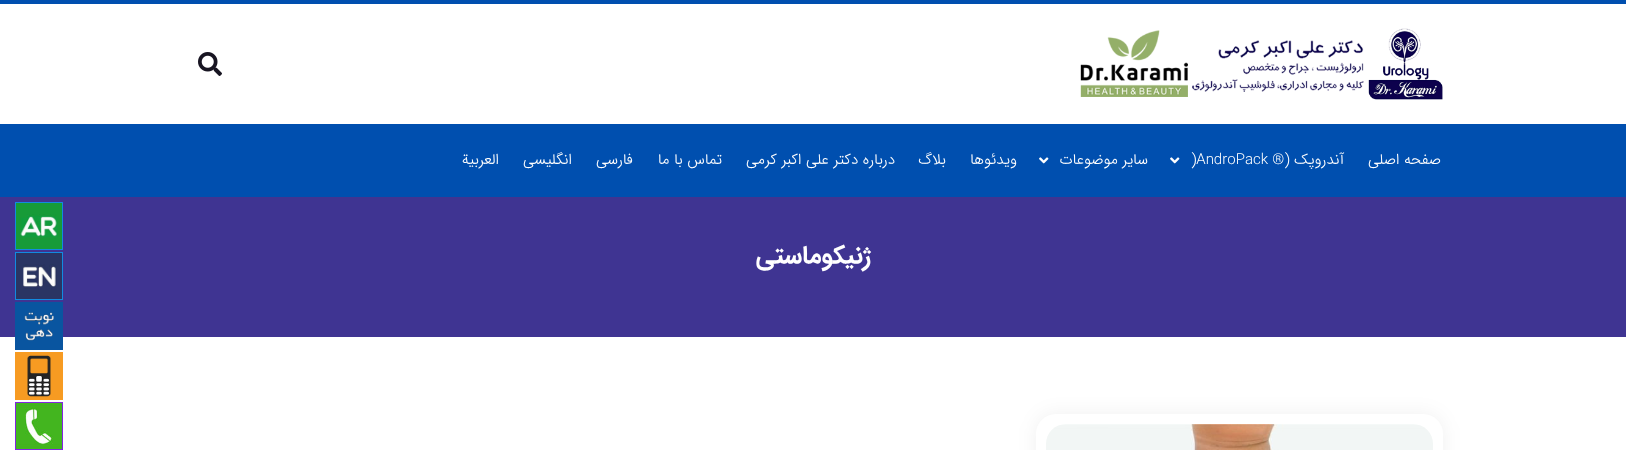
async function draw(canvas) {
  canvas.width = 1626;
  canvas.height = 450;
  const ctx = canvas.getContext('2d');
  ctx.miterLimit = 4;
  ctx.fontKerning = 'normal';
  function label(s, x, y, font, color) {
    ctx.font = font;
    ctx.fillStyle = color;
    ctx.fillText(s, x, y);
  }
  function rect(x, y, w, h, color) {
    ctx.fillStyle = color;
    ctx.fillRect(x, y, w, h);
  }
  function roundedRect(x, y, w, h, r, color) {
    ctx.fillStyle = color;
    ctx.beginPath();
    ctx.roundRect(x, y, w, h, r);
    ctx.fill();
  }
  async function image(src, x, y, w, h) {
    const img = new Image();
    img.src = src;
    await img.decode();
    ctx.drawImage(img, x, y, w, h);
  }

  rect(0, 0, 1626, 450, '#fff');
  rect(0, 0, 1626, 4, '#004faf');
  await image('assets/img1.png', 1080, 28, 363, 72);
  await image('assets/img2.png', 198, 52, 24, 24);
  rect(0, 124, 1626, 73, '#004faf');
  ctx.direction = 'rtl';
  label('صفحه اصلی', 1441, 164, '300 15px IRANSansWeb', '#fff');
  label('آندروپک (®', 1344, 164, '300 15px IRANSansWeb', '#fff');
  ctx.direction = 'ltr';
  label(')AndroPack', 1191, 164, '300 15px IRANSansWeb', '#fff');
  await image('assets/img3.png', 1170, 157, 10, 7);
  ctx.direction = 'rtl';
  label('سایر موضوعات', 1148, 164, '300 15px IRANSansWeb', '#fff');
  await image('assets/img3.png', 1039, 157, 10, 7);
  label('ویدئوها', 1017, 164, '300 15px IRANSansWeb', '#fff');
  label('بلاگ', 946, 164, '300 15px IRANSansWeb', '#fff');
  label('درباره دکتر علی اکبر کرمی', 895, 164, '300 15px IRANSansWeb', '#fff');
  label('تماس با ما', 722, 164, '300 15px IRANSansWeb', '#fff');
  label('فارسی', 633, 164, '300 15px IRANSansWeb', '#fff');
  label('انگلیسی', 572, 164, '300 15px IRANSansWeb', '#fff');
  label('العربية', 499, 164, '300 15px IRANSansWeb', '#fff');
  rect(0, 197, 1626, 140, '#3f3492');
  label('ژنیکوماستی', 871, 263, 'bold 25px IRANSansWeb', '#fff');
  rect(15, 202, 48, 48, '#128be0');
  await image('assets/img4.png', 16, 203, 46, 46);
  rect(15, 252, 48, 48, '#128be0');
  await image('assets/img5.png', 16, 253, 46, 46);
  rect(15, 302, 48, 48, '#0955a0');
  await image('assets/img6.png', 24, 312, 30, 29);
  rect(15, 352, 48, 48, '#f79b22');
  await image('assets/img7.png', 27, 355, 24, 42);
  rect(15, 402, 48, 48, '#8224e3');
  await image('assets/img8.png', 16, 403, 46, 46);
  ctx.fillStyle = '#0000000f';
  ctx.filter = 'blur(10px)';
  ctx.beginPath();
  ctx.roundRect(1036, 414, 407, 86, 20);
  ctx.fill();
  ctx.filter = 'none';
  roundedRect(1036, 414, 407, 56, 20, '#fff');
  await image('assets/img9.png', 1046, 424, 387, 26);
}

draw(document.querySelector('canvas'));
